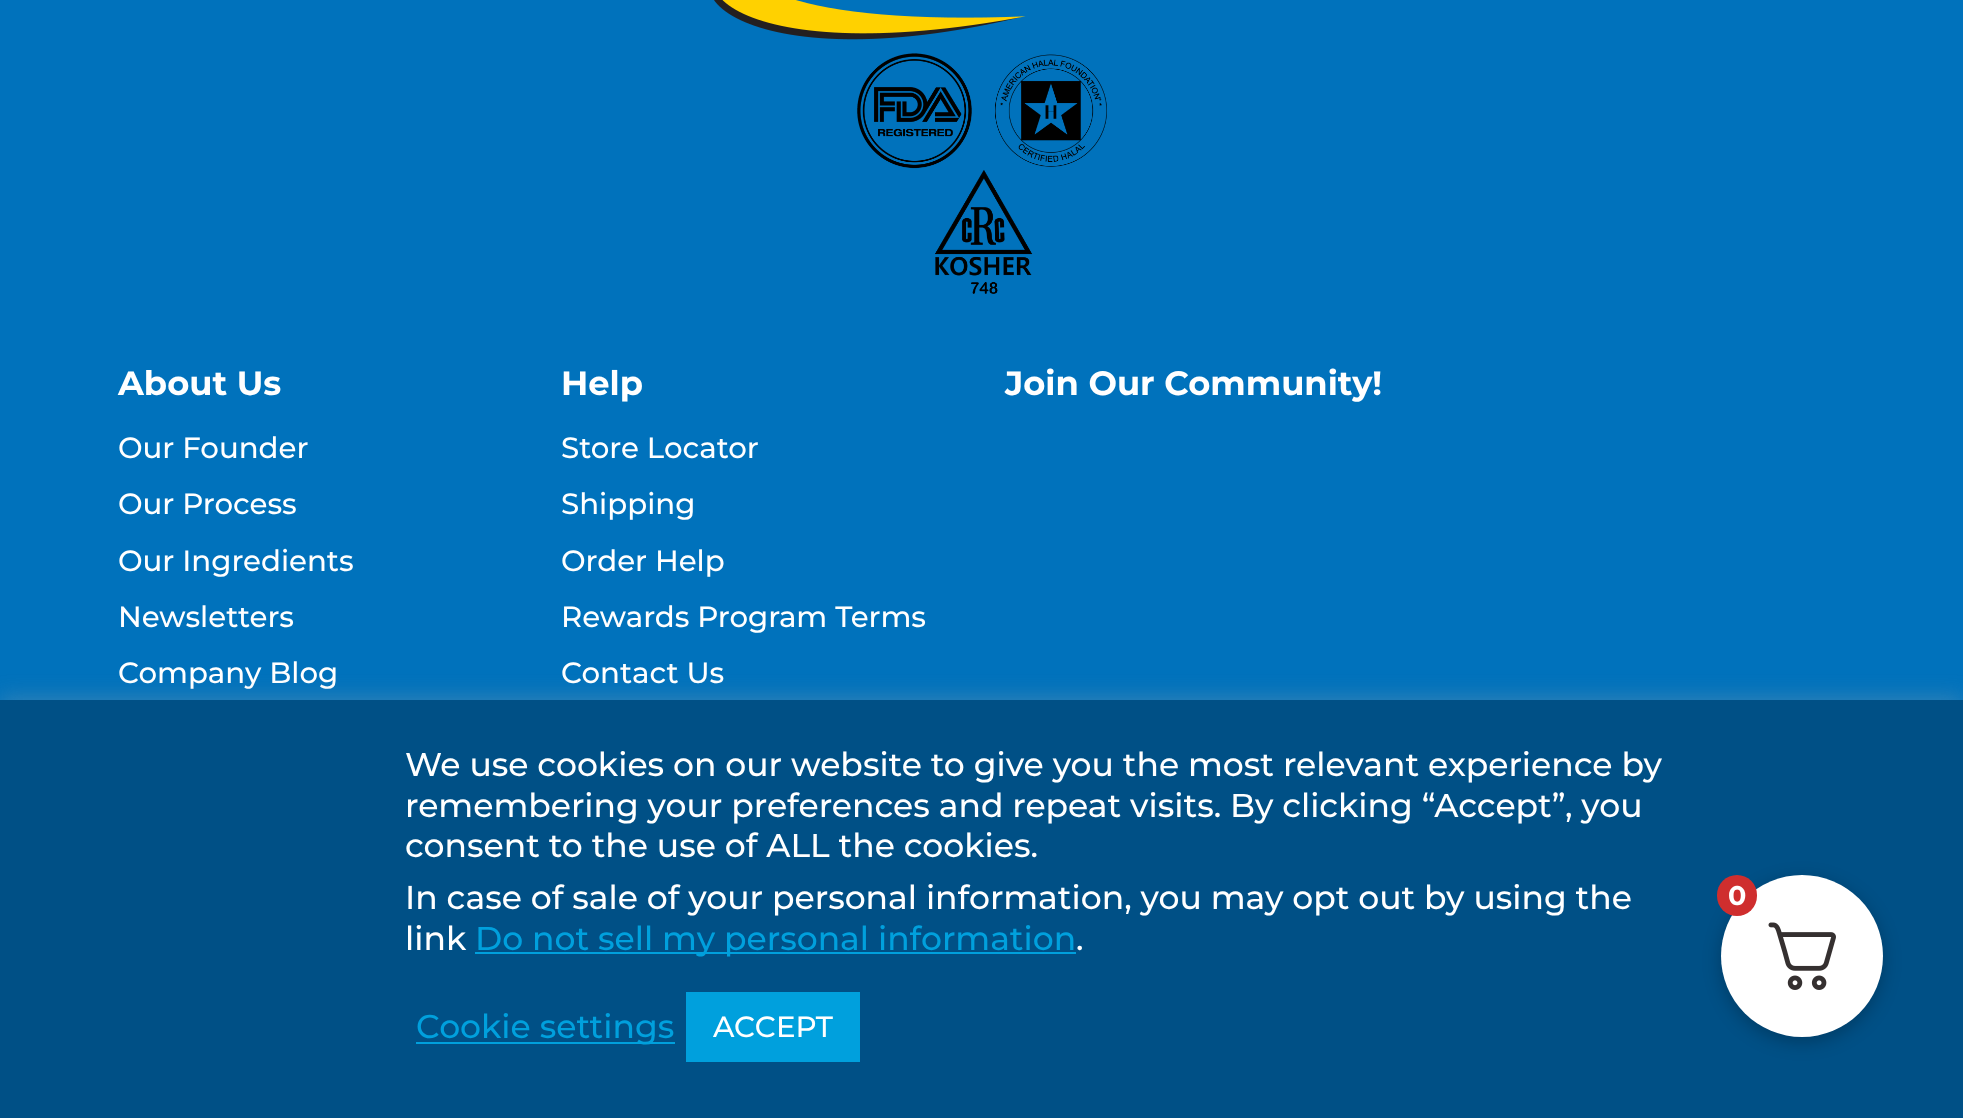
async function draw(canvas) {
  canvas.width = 1963;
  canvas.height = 1118;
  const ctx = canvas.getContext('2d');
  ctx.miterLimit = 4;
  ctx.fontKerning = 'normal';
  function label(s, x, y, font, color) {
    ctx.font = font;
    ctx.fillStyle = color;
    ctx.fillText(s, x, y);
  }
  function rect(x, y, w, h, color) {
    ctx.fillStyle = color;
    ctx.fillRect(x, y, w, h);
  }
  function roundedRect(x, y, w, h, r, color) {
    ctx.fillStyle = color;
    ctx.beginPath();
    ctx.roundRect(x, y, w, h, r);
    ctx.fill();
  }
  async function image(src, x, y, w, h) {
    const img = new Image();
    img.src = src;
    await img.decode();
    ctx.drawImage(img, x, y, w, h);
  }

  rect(0, 0, 1963, 1118, '#0072bc');
  await image('assets/img1.png', 714, 0, 312, 40);
  await image('assets/img2.png', 857, 53, 250, 241);
  label('About Us', 118, 395, 'bold 33.75px Montserrat', '#fff');
  label('Our Founder', 118, 458, '500 29.25px Montserrat', '#fff');
  label('Our Process', 118, 514, '500 29.25px Montserrat', '#fff');
  label('Our Ingredients', 118, 571, '500 29.25px Montserrat', '#fff');
  label('Newsletters', 118, 627, '500 29.25px Montserrat', '#fff');
  label('Company Blog', 118, 683, '500 29.25px Montserrat', '#fff');
  label('Help', 561, 395, 'bold 33.75px Montserrat', '#fff');
  label('Store Locator', 561, 458, '500 29.25px Montserrat', '#fff');
  label('Shipping', 561, 514, '500 29.25px Montserrat', '#fff');
  label('Order Help', 561, 571, '500 29.25px Montserrat', '#fff');
  label('Rewards Program Terms', 561, 627, '500 29.25px Montserrat', '#fff');
  label('Contact Us', 561, 683, '500 29.25px Montserrat', '#fff');
  label('Join Our Community!', 1005, 395, 'bold 33.75px Montserrat', '#fff');
  ctx.fillStyle = '#acabab4d';
  ctx.filter = 'blur(11px)';
  ctx.beginPath();
  ctx.rect(0, 698, 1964, 418);
  ctx.fill();
  ctx.filter = 'none';
  rect(0, 700, 1963, 418, '#005086');
  label('We use cookies on our website to give you the most relevant experience by', 405, 776, '500 33px Montserrat', '#fff');
  label('remembering your preferences and repeat visits. By clicking “Accept”, you', 405, 817, '500 33px Montserrat', '#fff');
  label('consent to the use of ALL the cookies.', 405, 857, '500 33px Montserrat', '#fff');
  label('In case of sale of your personal information, you may opt out by using the', 405, 909, '500 33px Montserrat', '#fff');
  label('link', 405, 950, '500 33px Montserrat', '#fff');
  rect(475, 952, 601, 2, '#00a0dd');
  label('Do not sell my personal information', 475, 950, '500 33px Montserrat', '#00a0dd');
  label('.', 1076, 950, '500 33px Montserrat', '#fff');
  rect(416, 1042, 259, 2, '#00a0dd');
  label('Cookie settings', 416, 1038, '500 33px Montserrat', '#00a0dd');
  rect(686, 992, 174, 70, '#00a0dd');
  label('ACCEPT', 713, 1037, '500 29.25px Montserrat', '#fff');
  ctx.fillStyle = '#00000040';
  ctx.filter = 'blur(9px)';
  ctx.beginPath();
  ctx.roundRect(1721, 880, 162, 162, 81);
  ctx.fill();
  ctx.filter = 'none';
  ctx.fillStyle = '#fff';
  ctx.beginPath();
  ctx.arc(1802, 956, 81, 0, 2 * Math.PI);
  ctx.fill();
  await image('assets/img3.png', 1768, 922, 68, 68);
  roundedRect(1717, 875, 40, 41, 20, '#cf2e2e');
  label('0', 1728, 905, 'bold 27px Montserrat', '#fff');
}

draw(document.querySelector('canvas'));
